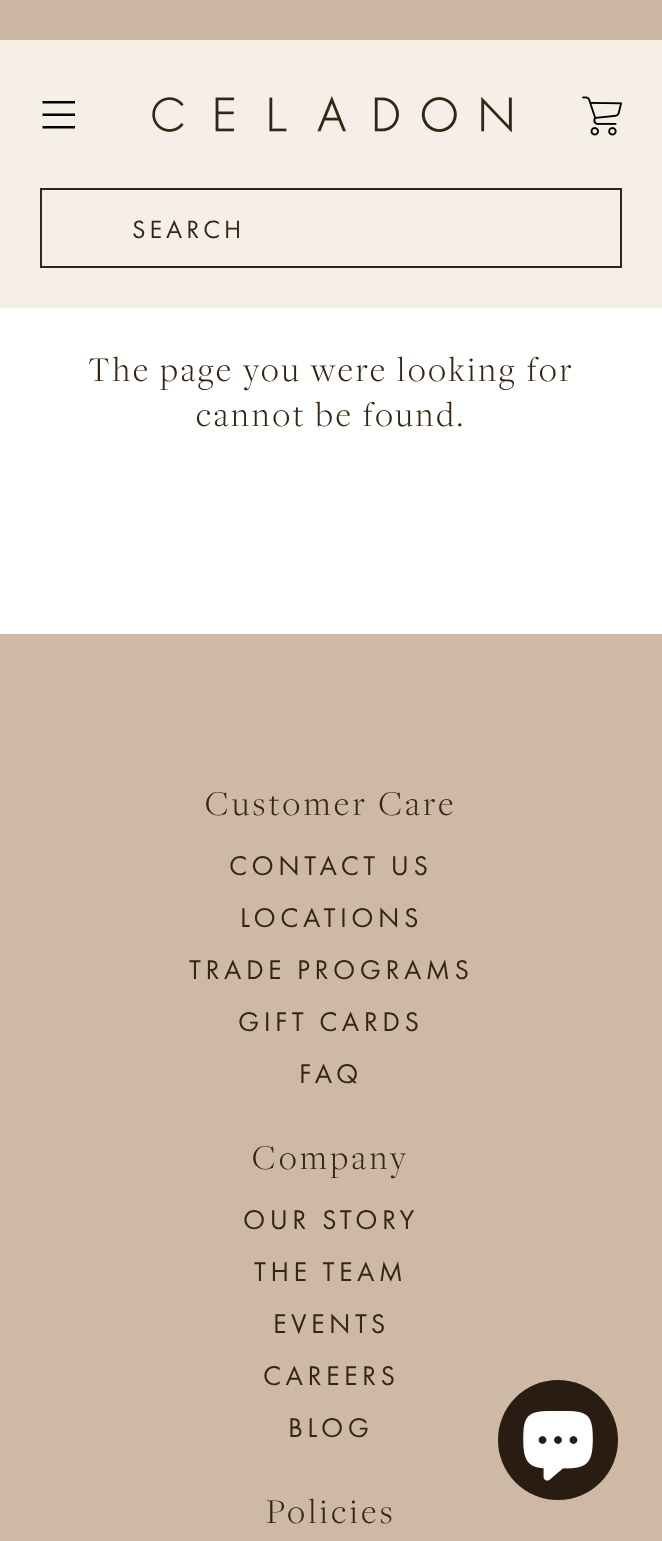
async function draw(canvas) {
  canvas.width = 662;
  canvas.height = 1541;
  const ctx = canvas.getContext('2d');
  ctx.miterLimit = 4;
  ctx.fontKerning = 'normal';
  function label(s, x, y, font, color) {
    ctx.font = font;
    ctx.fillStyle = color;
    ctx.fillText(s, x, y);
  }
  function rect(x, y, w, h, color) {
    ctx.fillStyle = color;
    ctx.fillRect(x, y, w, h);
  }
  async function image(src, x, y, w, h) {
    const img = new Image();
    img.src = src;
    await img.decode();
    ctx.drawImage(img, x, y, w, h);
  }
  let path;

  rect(0, 0, 662, 1541, '#fff');
  rect(0, 0, 662, 40, '#cdb8a4');
  rect(0, 40, 662, 268, '#f5efe7');
  ctx.fillStyle = '#000';
  path = new Path2D('M42.5 101V103.5H75V101ZM42.5 113.5V116H75V113.5ZM42.5 126V128.5H75V126Z');
  ctx.fill(path);
  await image('assets/img1.png', 152, 96, 360, 36);
  await image('assets/img2.png', 582, 96, 40, 40);
  ctx.strokeStyle = '#372513';
  ctx.lineWidth = 2;
  ctx.strokeRect(41, 189, 580, 78);
  ctx.letterSpacing = '4px';
  label('SEARCH', 132, 238, '26px Futura PT', '#372513');
  ctx.letterSpacing = '2.9px';
  label('The page you were looking for', 88, 381, '300 36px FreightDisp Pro', '#372513');
  label('cannot be found.', 196, 426, '300 36px FreightDisp Pro', '#372513');
  rect(0, 634, 662, 907, '#ceb9a5');
  ctx.letterSpacing = '3.6px';
  label('Customer Care', 205, 815, '300 36px FreightDisp Pro', '#372513');
  ctx.letterSpacing = '4.5px';
  label('CONTACT US', 229, 875, '28px Futura PT', '#372513');
  label('LOCATIONS', 240, 927, '28px Futura PT', '#372513');
  label('TRADE PROGRAMS', 189, 979, '28px Futura PT', '#372513');
  label('GIFT CARDS', 238, 1031, '28px Futura PT', '#372513');
  label('FAQ', 299, 1083, '28px Futura PT', '#372513');
  ctx.letterSpacing = '3.6px';
  label('Company', 252, 1169, '300 36px FreightDisp Pro', '#372513');
  ctx.letterSpacing = '4.5px';
  label('OUR STORY', 243, 1229, '28px Futura PT', '#372513');
  label('THE TEAM', 254, 1281, '28px Futura PT', '#372513');
  label('EVENTS', 273, 1333, '28px Futura PT', '#372513');
  label('CAREERS', 263, 1385, '28px Futura PT', '#372513');
  label('BLOG', 288, 1437, '28px Futura PT', '#372513');
  ctx.letterSpacing = '3.6px';
  label('Policies', 266, 1523, '300 36px FreightDisp Pro', '#372513');
  ctx.fillStyle = '#291c12';
  ctx.beginPath();
  ctx.arc(558, 1440, 60, 0, 2 * Math.PI);
  ctx.fill();
  await image('assets/img3.png', 523, 1411, 70, 70);
}

draw(document.querySelector('canvas'));
